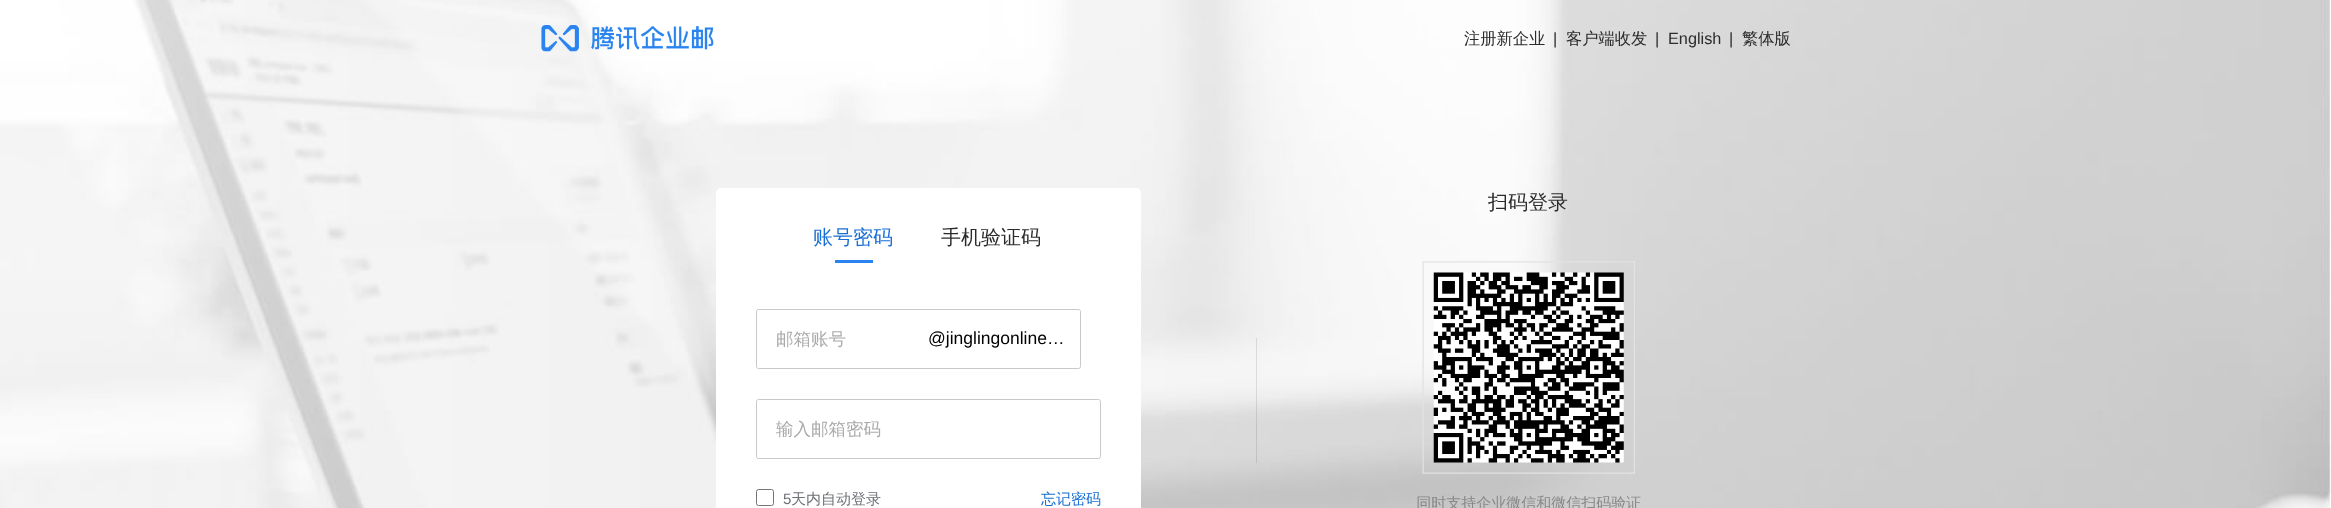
async function draw(canvas) {
  canvas.width = 2331;
  canvas.height = 508;
  const ctx = canvas.getContext('2d');
  ctx.miterLimit = 4;
  ctx.fontKerning = 'normal';
  function label(s, x, y, font, color) {
    ctx.font = font;
    ctx.fillStyle = color;
    ctx.fillText(s, x, y);
  }
  function rect(x, y, w, h, color) {
    ctx.fillStyle = color;
    ctx.fillRect(x, y, w, h);
  }
  function roundedRect(x, y, w, h, r, color) {
    ctx.fillStyle = color;
    ctx.beginPath();
    ctx.roundRect(x, y, w, h, r);
    ctx.fill();
  }
  async function image(src, x, y, w, h) {
    const img = new Image();
    img.src = src;
    await img.decode();
    ctx.drawImage(img, x, y, w, h);
  }

  rect(0, 0, 2331, 508, '#fff');
  await image('assets/img1.png', 0, 0, 2331, 508);
  await image('assets/img2.png', 541, 25, 173, 27);
  label('注册新企业', 1464, 44, '500 16.25px WenQuanYi Zen Hei', '#2b2b2b');
  label('|', 1553, 44, '16.25px Liberation Sans', '#2b2b2b');
  label('客户端收发', 1566, 44, '500 16.25px WenQuanYi Zen Hei', '#2b2b2b');
  label('|', 1655, 44, '16.25px Liberation Sans', '#2b2b2b');
  label('English', 1668, 44, '16.25px Liberation Sans', '#2b2b2b');
  label('|', 1729, 44, '16.25px Liberation Sans', '#2b2b2b');
  label('繁体版', 1742, 44, '500 16.25px WenQuanYi Zen Hei', '#2b2b2b');
  label('扫码登录', 1488, 209, '500 20px WenQuanYi Zen Hei', '#2b2b2b');
  rect(1256, 338, 1, 125, '#0000001a');
  await image('assets/img3.png', 1417, 261, 224, 247);
  roundedRect(716, 188, 425, 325, 5, '#fff');
  label('账号密码', 813, 244, '500 20px WenQuanYi Zen Hei', '#186fd5');
  rect(835, 260, 38, 3, '#2984ef');
  label('手机验证码', 941, 244, '500 20px WenQuanYi Zen Hei', '#2b2b2b');
  ctx.beginPath();
  ctx.roundRect(756.5, 309.5, 324, 59, 2);
  ctx.strokeStyle = '#c9c9c9';
  ctx.stroke();
  label('邮箱账号', 776, 345, '500 17.5px WenQuanYi Zen Hei', '#aaa');
  label('@jinglingonline…', 928, 344, '17.5px Liberation Sans', '#000');
  ctx.beginPath();
  ctx.roundRect(756.5, 399.5, 344, 59, 2);
  ctx.stroke();
  ctx.save();
  ctx.beginPath();
  ctx.rect(776, 419, 305, 22);
  ctx.clip();
  label('输入邮箱密码', 776, 435, '500 17.5px WenQuanYi Zen Hei', '#aaa');
  ctx.restore();
  ctx.beginPath();
  ctx.roundRect(756.5, 489.5, 17, 16, 2);
  ctx.strokeStyle = '#767676';
  ctx.stroke();
  label('5', 783, 504, '15px Liberation Sans', '#6d7176');
  label('天内自动登录', 791, 504, '500 15px WenQuanYi Zen Hei', '#6d7176');
  label('忘记密码', 1041, 504, '500 15px WenQuanYi Zen Hei', '#186fd5');
}

draw(document.querySelector('canvas'));
